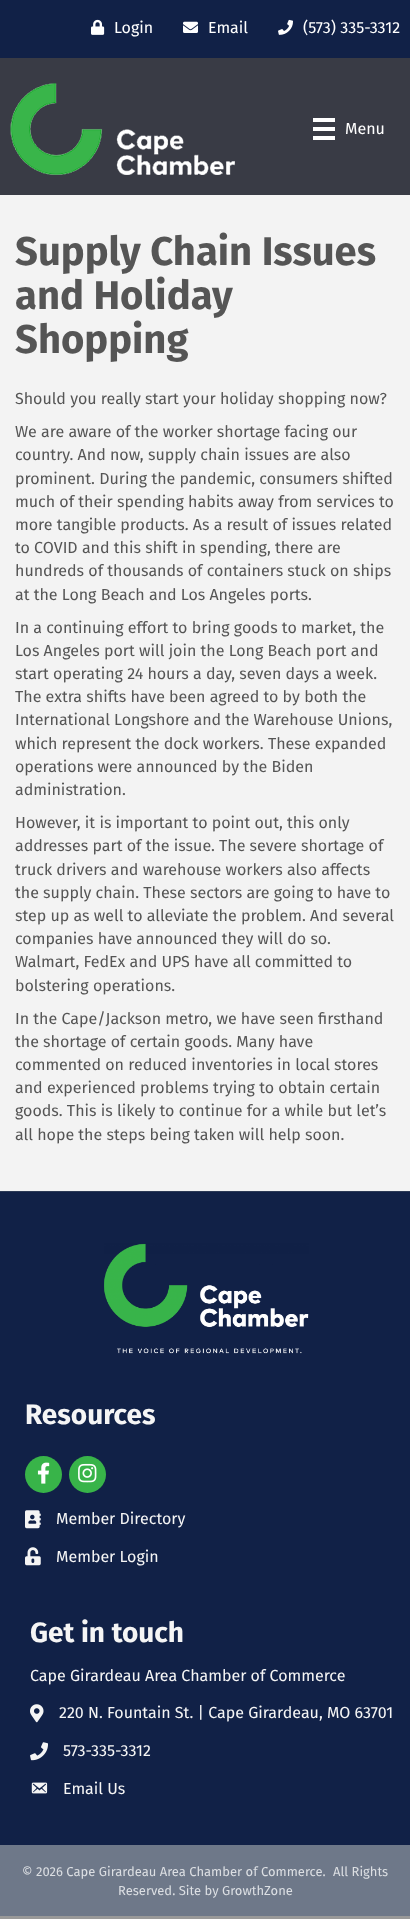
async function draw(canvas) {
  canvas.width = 410;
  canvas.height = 1919;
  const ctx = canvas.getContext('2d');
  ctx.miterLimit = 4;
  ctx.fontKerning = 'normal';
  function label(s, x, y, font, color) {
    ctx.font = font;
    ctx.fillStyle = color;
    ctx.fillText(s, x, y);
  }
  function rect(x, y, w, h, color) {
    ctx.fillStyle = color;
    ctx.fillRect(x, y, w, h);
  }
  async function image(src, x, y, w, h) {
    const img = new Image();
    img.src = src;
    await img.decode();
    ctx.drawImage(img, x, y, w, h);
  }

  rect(0, 0, 410, 1919, '#999');
  rect(0, 0, 410, 58, '#112147');
  await image('assets/img1.png', 91, 19, 14, 16);
  label('Login', 114, 33, '16px Fira Sans', '#fff');
  await image('assets/img2.png', 183, 21, 15, 12);
  label('Email', 208, 33, '16px Fira Sans', '#fff');
  await image('assets/img3.png', 278, 19, 15, 16);
  label('(573) 335-3312', 303, 33, '16px Fira Sans', '#fff');
  rect(0, 58, 410, 137, '#393b45');
  await image('assets/img4.png', 10, 83, 225, 92);
  rect(313, 118, 22, 4, '#fff');
  rect(313, 127, 22, 4, '#fff');
  rect(313, 136, 22, 4, '#fff');
  label('Menu', 345, 134, '16px Fira Sans', '#fff');
  rect(0, 195, 410, 996, '#f3f3f3');
  label('Supply Chain Issues', 15, 265, 'bold 40px Fira Sans', '#555');
  label('and Holiday', 15, 309, 'bold 40px Fira Sans', '#555');
  label('Shopping', 15, 353, 'bold 40px Fira Sans', '#555');
  label('Should you really start your holiday shopping now?', 15, 404, '16px Fira Sans', '#555');
  label('We are aware of the worker shortage facing our', 15, 437, '16px Fira Sans', '#555');
  label('country. And now, supply chain issues are also', 15, 460, '16px Fira Sans', '#555');
  label('prominent. During the pandemic, consumers shifted', 15, 484, '16px Fira Sans', '#555');
  label('much of their spending habits away from services to', 15, 507, '16px Fira Sans', '#555');
  label('more tangible products. As a result of issues related', 15, 530, '16px Fira Sans', '#555');
  label('to COVID and this shift in spending, there are', 15, 553, '16px Fira Sans', '#555');
  label('hundreds of thousands of containers stuck on ships', 15, 576, '16px Fira Sans', '#555');
  label('at the Long Beach and Los Angeles ports.', 15, 600, '16px Fira Sans', '#555');
  label('In a continuing effort to bring goods to market, the', 15, 633, '16px Fira Sans', '#555');
  label('Los Angeles port will join the Long Beach port and', 15, 656, '16px Fira Sans', '#555');
  label('start operating 24 hours a day, seven days a week.', 15, 679, '16px Fira Sans', '#555');
  label('The extra shifts have been agreed to by both the', 15, 702, '16px Fira Sans', '#555');
  label('International Longshore and the Warehouse Unions,', 15, 725, '16px Fira Sans', '#555');
  label('which represent the dock workers. These expanded', 15, 749, '16px Fira Sans', '#555');
  label('operations were announced by the Biden', 15, 772, '16px Fira Sans', '#555');
  label('administration.', 15, 795, '16px Fira Sans', '#555');
  label('However, it is important to point out, this only', 15, 828, '16px Fira Sans', '#555');
  label('addresses part of the issue. The severe shortage of', 15, 851, '16px Fira Sans', '#555');
  label('truck drivers and warehouse workers also affects', 15, 875, '16px Fira Sans', '#555');
  label('the supply chain. These sectors are going to have to', 15, 898, '16px Fira Sans', '#555');
  label('step up as well to alleviate the problem. And several', 15, 921, '16px Fira Sans', '#555');
  label('companies have announced they will do so.', 15, 944, '16px Fira Sans', '#555');
  label('Walmart, FedEx and UPS have all committed to', 15, 967, '16px Fira Sans', '#555');
  label('bolstering operations.', 15, 991, '16px Fira Sans', '#555');
  label('In the Cape/Jackson metro, we have seen firsthand', 15, 1024, '16px Fira Sans', '#555');
  label('the shortage of certain goods. Many have', 15, 1047, '16px Fira Sans', '#555');
  label('commented on reduced inventories in local stores', 15, 1070, '16px Fira Sans', '#555');
  label('and experienced problems trying to obtain certain', 15, 1093, '16px Fira Sans', '#555');
  label('goods. This is likely to continue for a while but let’s', 15, 1116, '16px Fira Sans', '#555');
  label('all hope the steps being taken will help soon.', 15, 1140, '16px Fira Sans', '#555');
  rect(0, 1192, 410, 653, '#112147');
  rect(0, 1191, 410, 1, '#2c3a56');
  await image('assets/img5.png', 104, 1243, 205, 111);
  label('Resources', 25, 1424, 'bold 28px Fira Sans', '#f5f5f5');
  ctx.fillStyle = '#38b449';
  ctx.beginPath();
  ctx.arc(43.5, 1474.5, 18.5, 0, 2 * Math.PI);
  ctx.fill();
  await image('assets/img6.png', 37, 1462, 13, 22);
  ctx.beginPath();
  ctx.arc(87.5, 1474.5, 18.5, 0, 2 * Math.PI);
  ctx.fill();
  await image('assets/img7.png', 78, 1463, 19, 20);
  await image('assets/img8.png', 25, 1510, 16, 19);
  label('Member Directory', 56, 1524, '16px Fira Sans', '#f5f5f5');
  await image('assets/img9.png', 25, 1547, 16, 19);
  label('Member Login', 56, 1562, '16px Fira Sans', '#f5f5f5');
  label('Get in touch', 30, 1642, 'bold 28px Fira Sans', '#f5f5f5');
  label('Cape Girardeau Area Chamber of Commerce', 30, 1681, '16px Fira Sans', '#f5f5f5');
  await image('assets/img10.png', 30, 1704, 14, 19);
  label('220 N. Fountain St. | Cape Girardeau, MO 63701', 59, 1718, '16px Fira Sans', '#f5f5f5');
  await image('assets/img11.png', 30, 1742, 18, 19);
  label('573-335-3312', 63, 1756, '16px Fira Sans', '#f5f5f5');
  await image('assets/img12.png', 31, 1782, 17, 12);
  label('Email Us', 63, 1794, '16px Fira Sans', '#f5f5f5');
  rect(0, 1845, 410, 71, '#6e7889');
  label('© 2026 Cape Girardeau Area Chamber of Commerce.', 22, 1876, '13px Fira Sans', '#dcdfe3');
  label('All Rights', 333, 1876, '13px Fira Sans', '#dcdfe3');
  label('Reserved. Site by GrowthZone', 118, 1895, '13px Fira Sans', '#dcdfe3');
}

draw(document.querySelector('canvas'));
